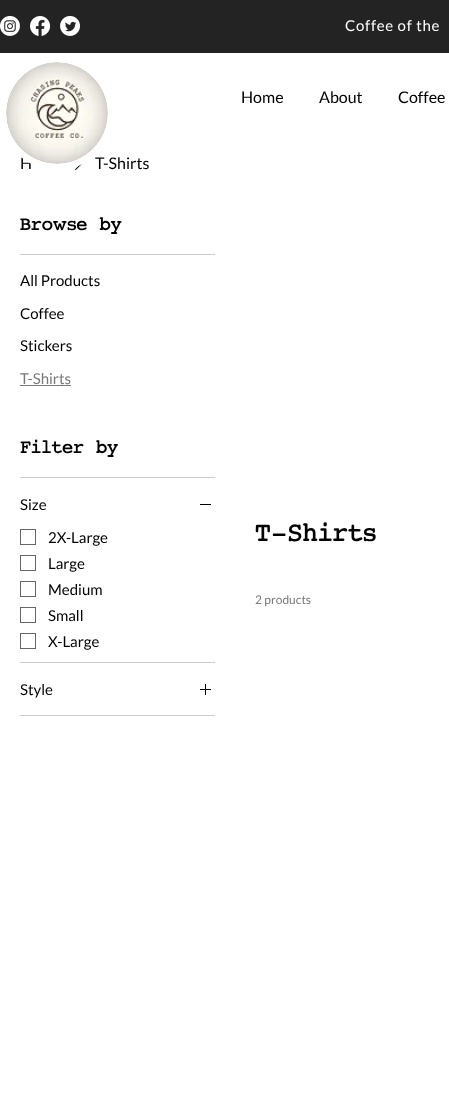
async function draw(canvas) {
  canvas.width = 449;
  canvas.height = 1100;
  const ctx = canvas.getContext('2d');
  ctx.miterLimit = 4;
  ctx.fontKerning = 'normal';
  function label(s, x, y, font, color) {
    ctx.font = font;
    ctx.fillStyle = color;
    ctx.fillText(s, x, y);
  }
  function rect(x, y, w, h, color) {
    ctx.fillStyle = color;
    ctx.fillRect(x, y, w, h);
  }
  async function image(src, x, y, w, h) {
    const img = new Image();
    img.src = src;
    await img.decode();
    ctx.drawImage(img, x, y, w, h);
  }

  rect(0, 0, 449, 1100, '#fff');
  rect(0, 0, 449, 53, '#242323');
  await image('assets/img1.png', 0, 16, 20, 20);
  await image('assets/img2.png', 30, 16, 20, 20);
  await image('assets/img3.png', 60, 16, 20, 20);
  ctx.letterSpacing = '0.75px';
  label('Coffee of the', 345, 31, '15px Lato', '#fff');
  ctx.letterSpacing = '0px';
  label('H', 20, 169, '16px Lato', '#000');
  await image('assets/img5.png', 75, 163, 8, 7);
  label('T-Shirts', 95, 169, '16px Lato', '#000');
  ctx.fillStyle = '#fff';
  ctx.beginPath();
  ctx.arc(57, 113, 54, 0, 2 * Math.PI);
  ctx.fill();
  ctx.strokeStyle = '#fff';
  ctx.lineWidth = 6;
  ctx.stroke();
  await image('assets/img4.png', 6, 62, 102, 102);
  label('Home', 241, 103, '16px Lato', '#000');
  label('About', 319, 103, '16px Lato', '#000');
  label('Coffee', 398, 103, '16px Lato', '#000');
  rect(20, 254, 195, 1, '#ccc');
  label('Browse by', 20, 230, '20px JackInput', '#000');
  label('All Products', 20, 286, '15px Lato', '#000');
  label('Coffee', 20, 319, '15px Lato', '#000');
  label('Stickers', 20, 351, '15px Lato', '#000');
  label('T-Shirts', 20, 384, '15px Lato', '#797979');
  rect(20, 385, 51, 1, '#797979');
  rect(20, 477, 195, 1, '#ccc');
  label('Filter by', 20, 453, '20px JackInput', '#000');
  rect(20, 662, 195, 1, '#ccc');
  label('Size', 20, 510, '15px Lato', '#000');
  rect(200, 504, 11, 1, '#000');
  ctx.strokeStyle = '#666';
  ctx.lineWidth = 1;
  ctx.strokeRect(20.5, 529.5, 15, 15);
  label('2X-Large', 48, 543, '15px Lato', '#000');
  ctx.strokeRect(20.5, 555.5, 15, 15);
  label('Large', 48, 569, '15px Lato', '#000');
  ctx.strokeRect(20.5, 581.5, 15, 15);
  label('Medium', 48, 595, '15px Lato', '#000');
  ctx.strokeRect(20.5, 607.5, 15, 15);
  label('Small', 48, 621, '15px Lato', '#000');
  ctx.strokeRect(20.5, 633.5, 15, 15);
  label('X-Large', 48, 647, '15px Lato', '#000');
  rect(20, 715, 195, 1, '#ccc');
  label('Style', 20, 695, '15px Lato', '#000');
  await image('assets/img6.png', 200, 684, 11, 11);
  label('T-Shirts', 255, 541, '28px JackInput', '#000');
  label('2 products', 255, 604, '12px Lato', '#797979');
}

draw(document.querySelector('canvas'));
